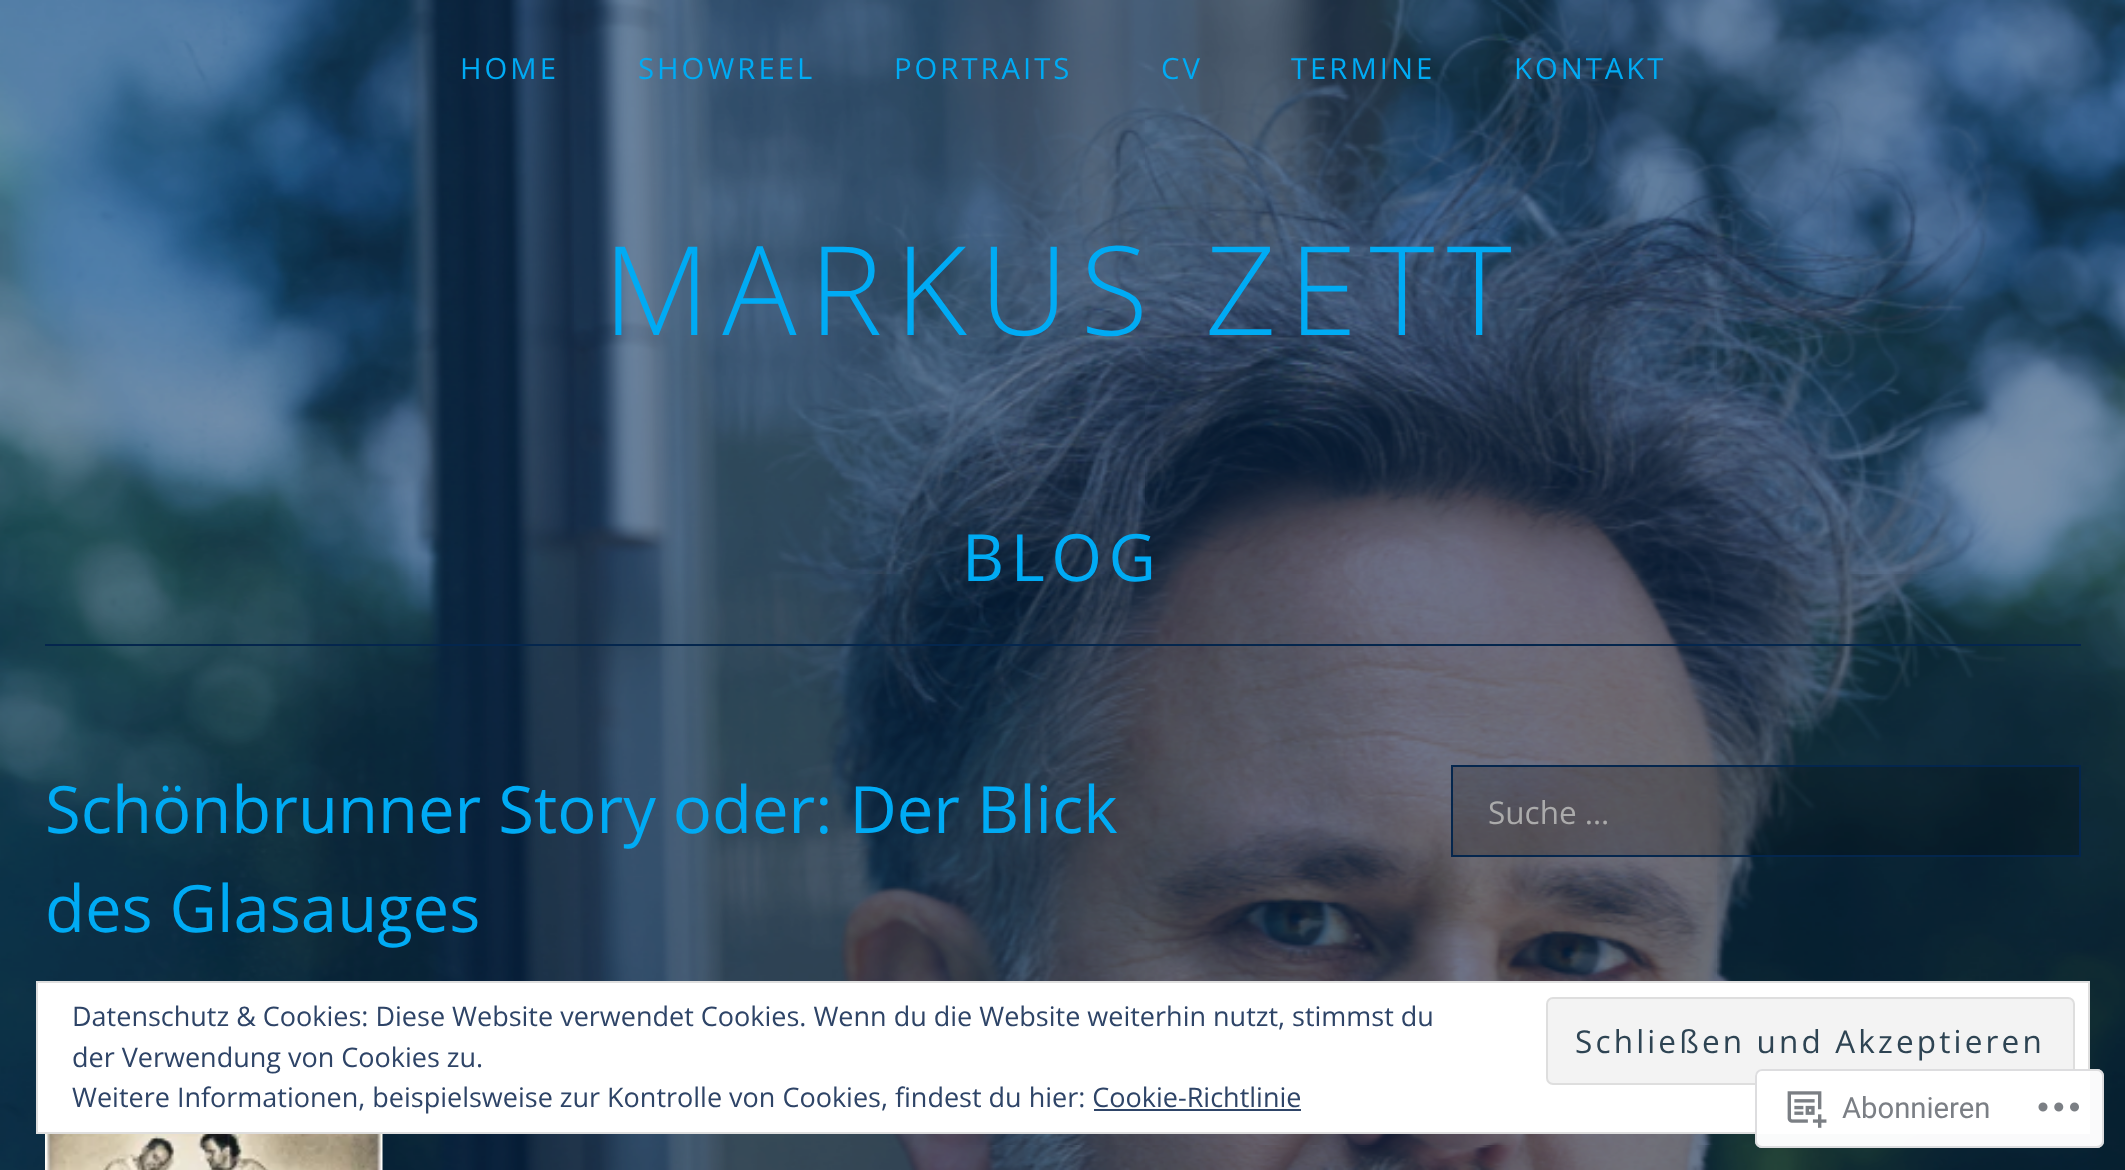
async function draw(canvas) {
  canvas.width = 2125;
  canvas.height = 1170;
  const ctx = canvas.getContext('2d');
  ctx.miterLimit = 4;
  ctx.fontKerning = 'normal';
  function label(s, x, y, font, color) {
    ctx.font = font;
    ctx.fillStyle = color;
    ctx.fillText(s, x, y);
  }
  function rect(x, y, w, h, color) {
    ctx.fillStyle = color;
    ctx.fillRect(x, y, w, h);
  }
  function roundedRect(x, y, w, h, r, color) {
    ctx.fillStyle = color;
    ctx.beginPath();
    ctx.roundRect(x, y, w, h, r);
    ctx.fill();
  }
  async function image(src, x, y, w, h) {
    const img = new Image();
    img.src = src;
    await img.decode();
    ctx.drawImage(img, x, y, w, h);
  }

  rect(0, 0, 2125, 1170, '#fff');
  await image('assets/img1.png', 0, 0, 2125, 1170);
  ctx.letterSpacing = '3px';
  label('HOME', 460, 79, '29.25px Open Sans', '#00abf4');
  label('SHOWREEL', 638, 79, '29.25px Open Sans', '#00abf4');
  label('PORTRAITS', 894, 79, '29.25px Open Sans', '#00abf4');
  label('CV', 1161, 79, '29.25px Open Sans', '#00abf4');
  label('TERMINE', 1291, 79, '29.25px Open Sans', '#00abf4');
  label('KONTAKT', 1514, 79, '29.25px Open Sans', '#00abf4');
  ctx.letterSpacing = '12.4px';
  label('MARKUS ZETT', 603, 335, '300 123.75px Open Sans', '#00abf4');
  rect(45, 644, 2036, 2, '#04264d');
  ctx.letterSpacing = '6.5px';
  label('BLOG', 962, 581, '65.25px Open Sans', '#00abf4');
  ctx.letterSpacing = '0px';
  label('Schönbrunner Story oder: Der Blick', 45, 833, '65.25px Open Sans', '#00abf4');
  label('des Glasauges', 45, 932, '65.25px Open Sans', '#00abf4');
  await image('assets/img2.png', 45, 1134, 338, 36);
  ctx.fillStyle = '#00000033';
  ctx.beginPath();
  ctx.rect(1452, 766, 628, 90);
  ctx.fill();
  ctx.strokeStyle = '#04264d';
  ctx.lineWidth = 2;
  ctx.stroke();
  label('Suche …', 1488, 824, '31.5px Open Sans', '#ababab');
  ctx.fillStyle = '#fff';
  ctx.beginPath();
  ctx.rect(37, 982, 2052, 151);
  ctx.fill();
  ctx.strokeStyle = '#dedede';
  ctx.stroke();
  label('Datenschutz & Cookies: Diese Website verwendet Cookies. Wenn du die Website weiterhin nutzt, stimmst du', 72, 1026, '27px Open Sans', '#2e4467');
  label('der Verwendung von Cookies zu.', 72, 1067, '27px Open Sans', '#2e4467');
  ctx.fillStyle = '#f3f3f3';
  ctx.beginPath();
  ctx.roundRect(1547, 998, 527, 86, 6);
  ctx.fill();
  ctx.stroke();
  ctx.letterSpacing = '3.15px';
  label('Schließen und Akzeptieren', 1575, 1053, '31.5px Open Sans', '#2e4453');
  ctx.letterSpacing = '0px';
  label('Weitere Informationen, beispielsweise zur Kontrolle von Cookies, findest du hier: Cookie-Richtlinie', 72, 1107, '27px Open Sans', '#2e4467');
  rect(1094, 1109, 207, 2, '#2e4467');
  roundedRect(1755, 1069, 349, 79, 7, '#fffffffa');
  ctx.beginPath();
  ctx.roundRect(1756, 1070, 347, 77, 6);
  ctx.strokeStyle = '#dcdcdefa';
  ctx.stroke();
  await image('assets/img3.png', 1787, 1091, 40, 37);
  label('Abonnieren', 1842, 1118, '29.25px Roboto', '#7b7f85');
  await image('assets/img4.png', 2038, 1102, 41, 10);
}

draw(document.querySelector('canvas'));
